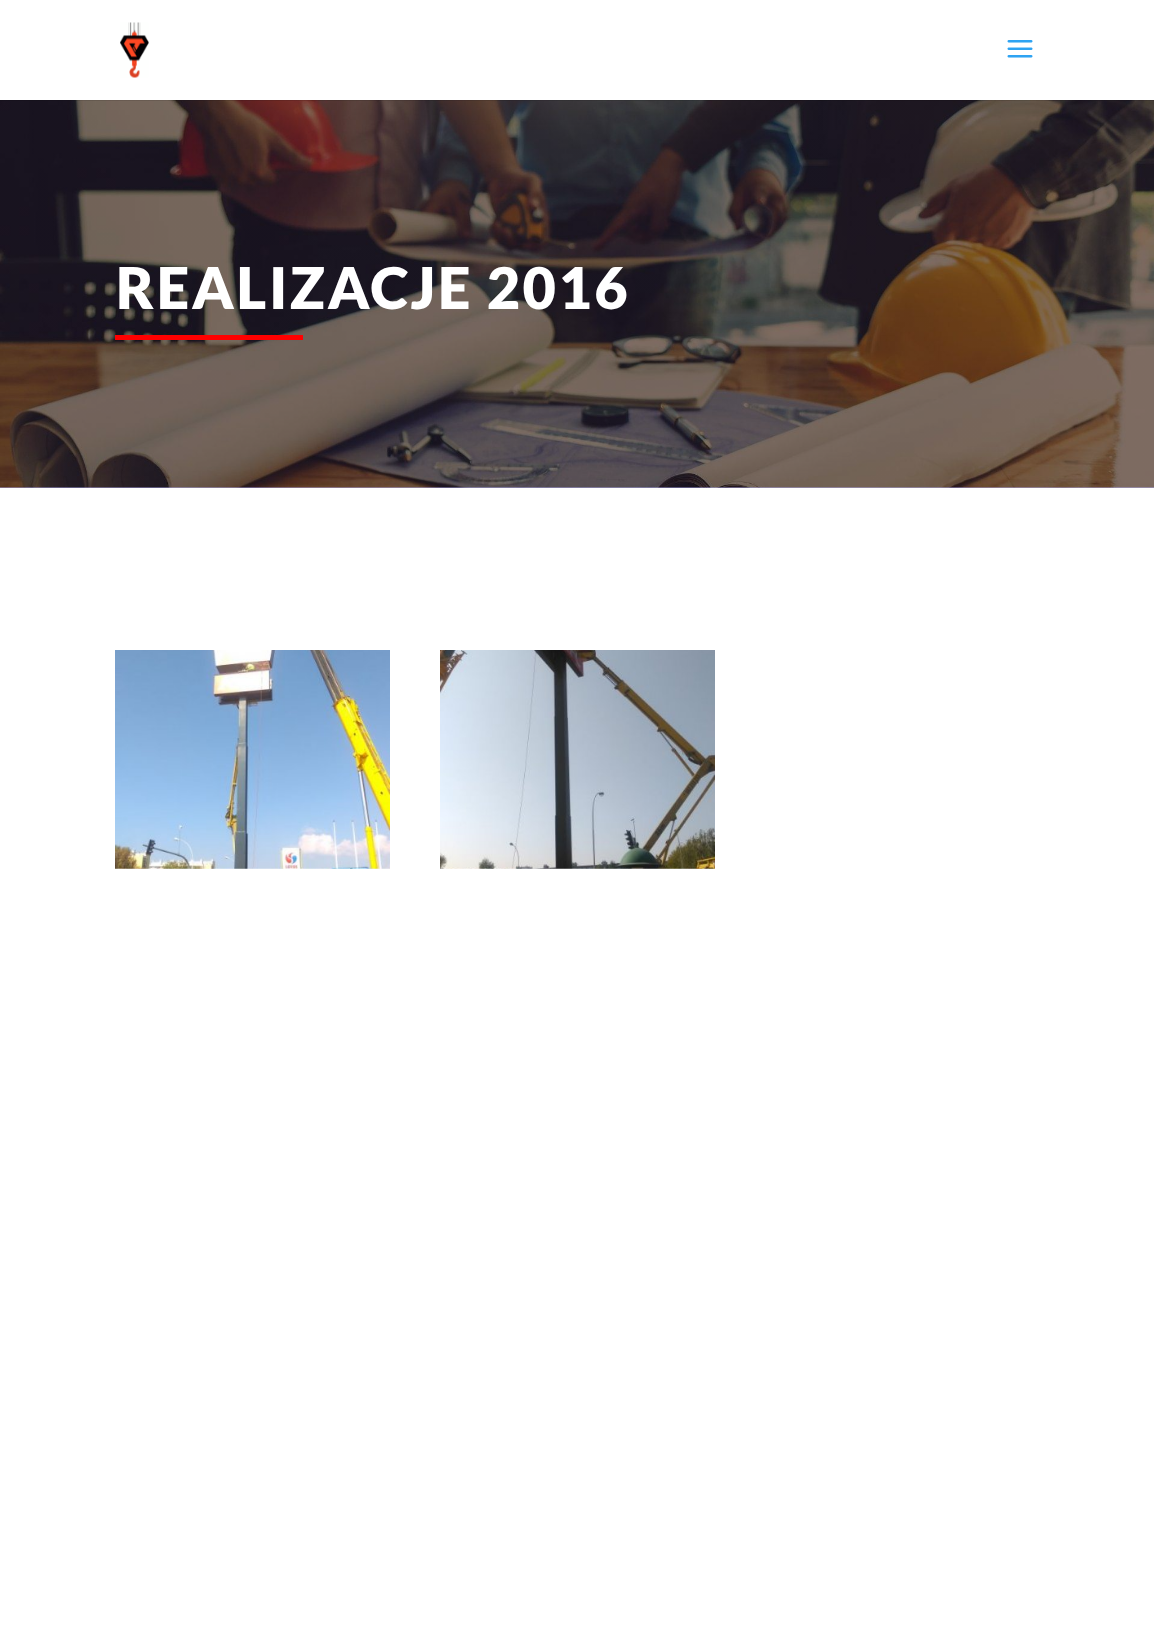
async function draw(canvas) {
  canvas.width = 1154;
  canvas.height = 1635;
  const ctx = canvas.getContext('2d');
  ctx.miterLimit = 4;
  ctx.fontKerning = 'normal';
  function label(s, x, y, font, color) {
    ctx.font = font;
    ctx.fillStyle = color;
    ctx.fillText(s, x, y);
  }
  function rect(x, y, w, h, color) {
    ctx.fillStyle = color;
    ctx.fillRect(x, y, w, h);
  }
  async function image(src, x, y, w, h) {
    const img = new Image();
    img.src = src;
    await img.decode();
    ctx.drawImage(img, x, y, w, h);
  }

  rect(0, 0, 1154, 1635, '#fff');
  await image('assets/img3.png', 0, 100, 1154, 388);
  rect(0, 100, 1154, 1, '#0000001a');
  await image('assets/img1.png', 120, 22, 29, 56);
  await image('assets/img2.png', 1007, 40, 26, 18);
  ctx.letterSpacing = '2.5px';
  label('REALIZACJE 2016', 116, 309, '900 57.5px Lato', '#fff');
  rect(115, 335, 188, 5, '#f00');
  await image('assets/img4.png', 115, 650, 275, 219);
  await image('assets/img5.png', 440, 650, 275, 219);
}

draw(document.querySelector('canvas'));
